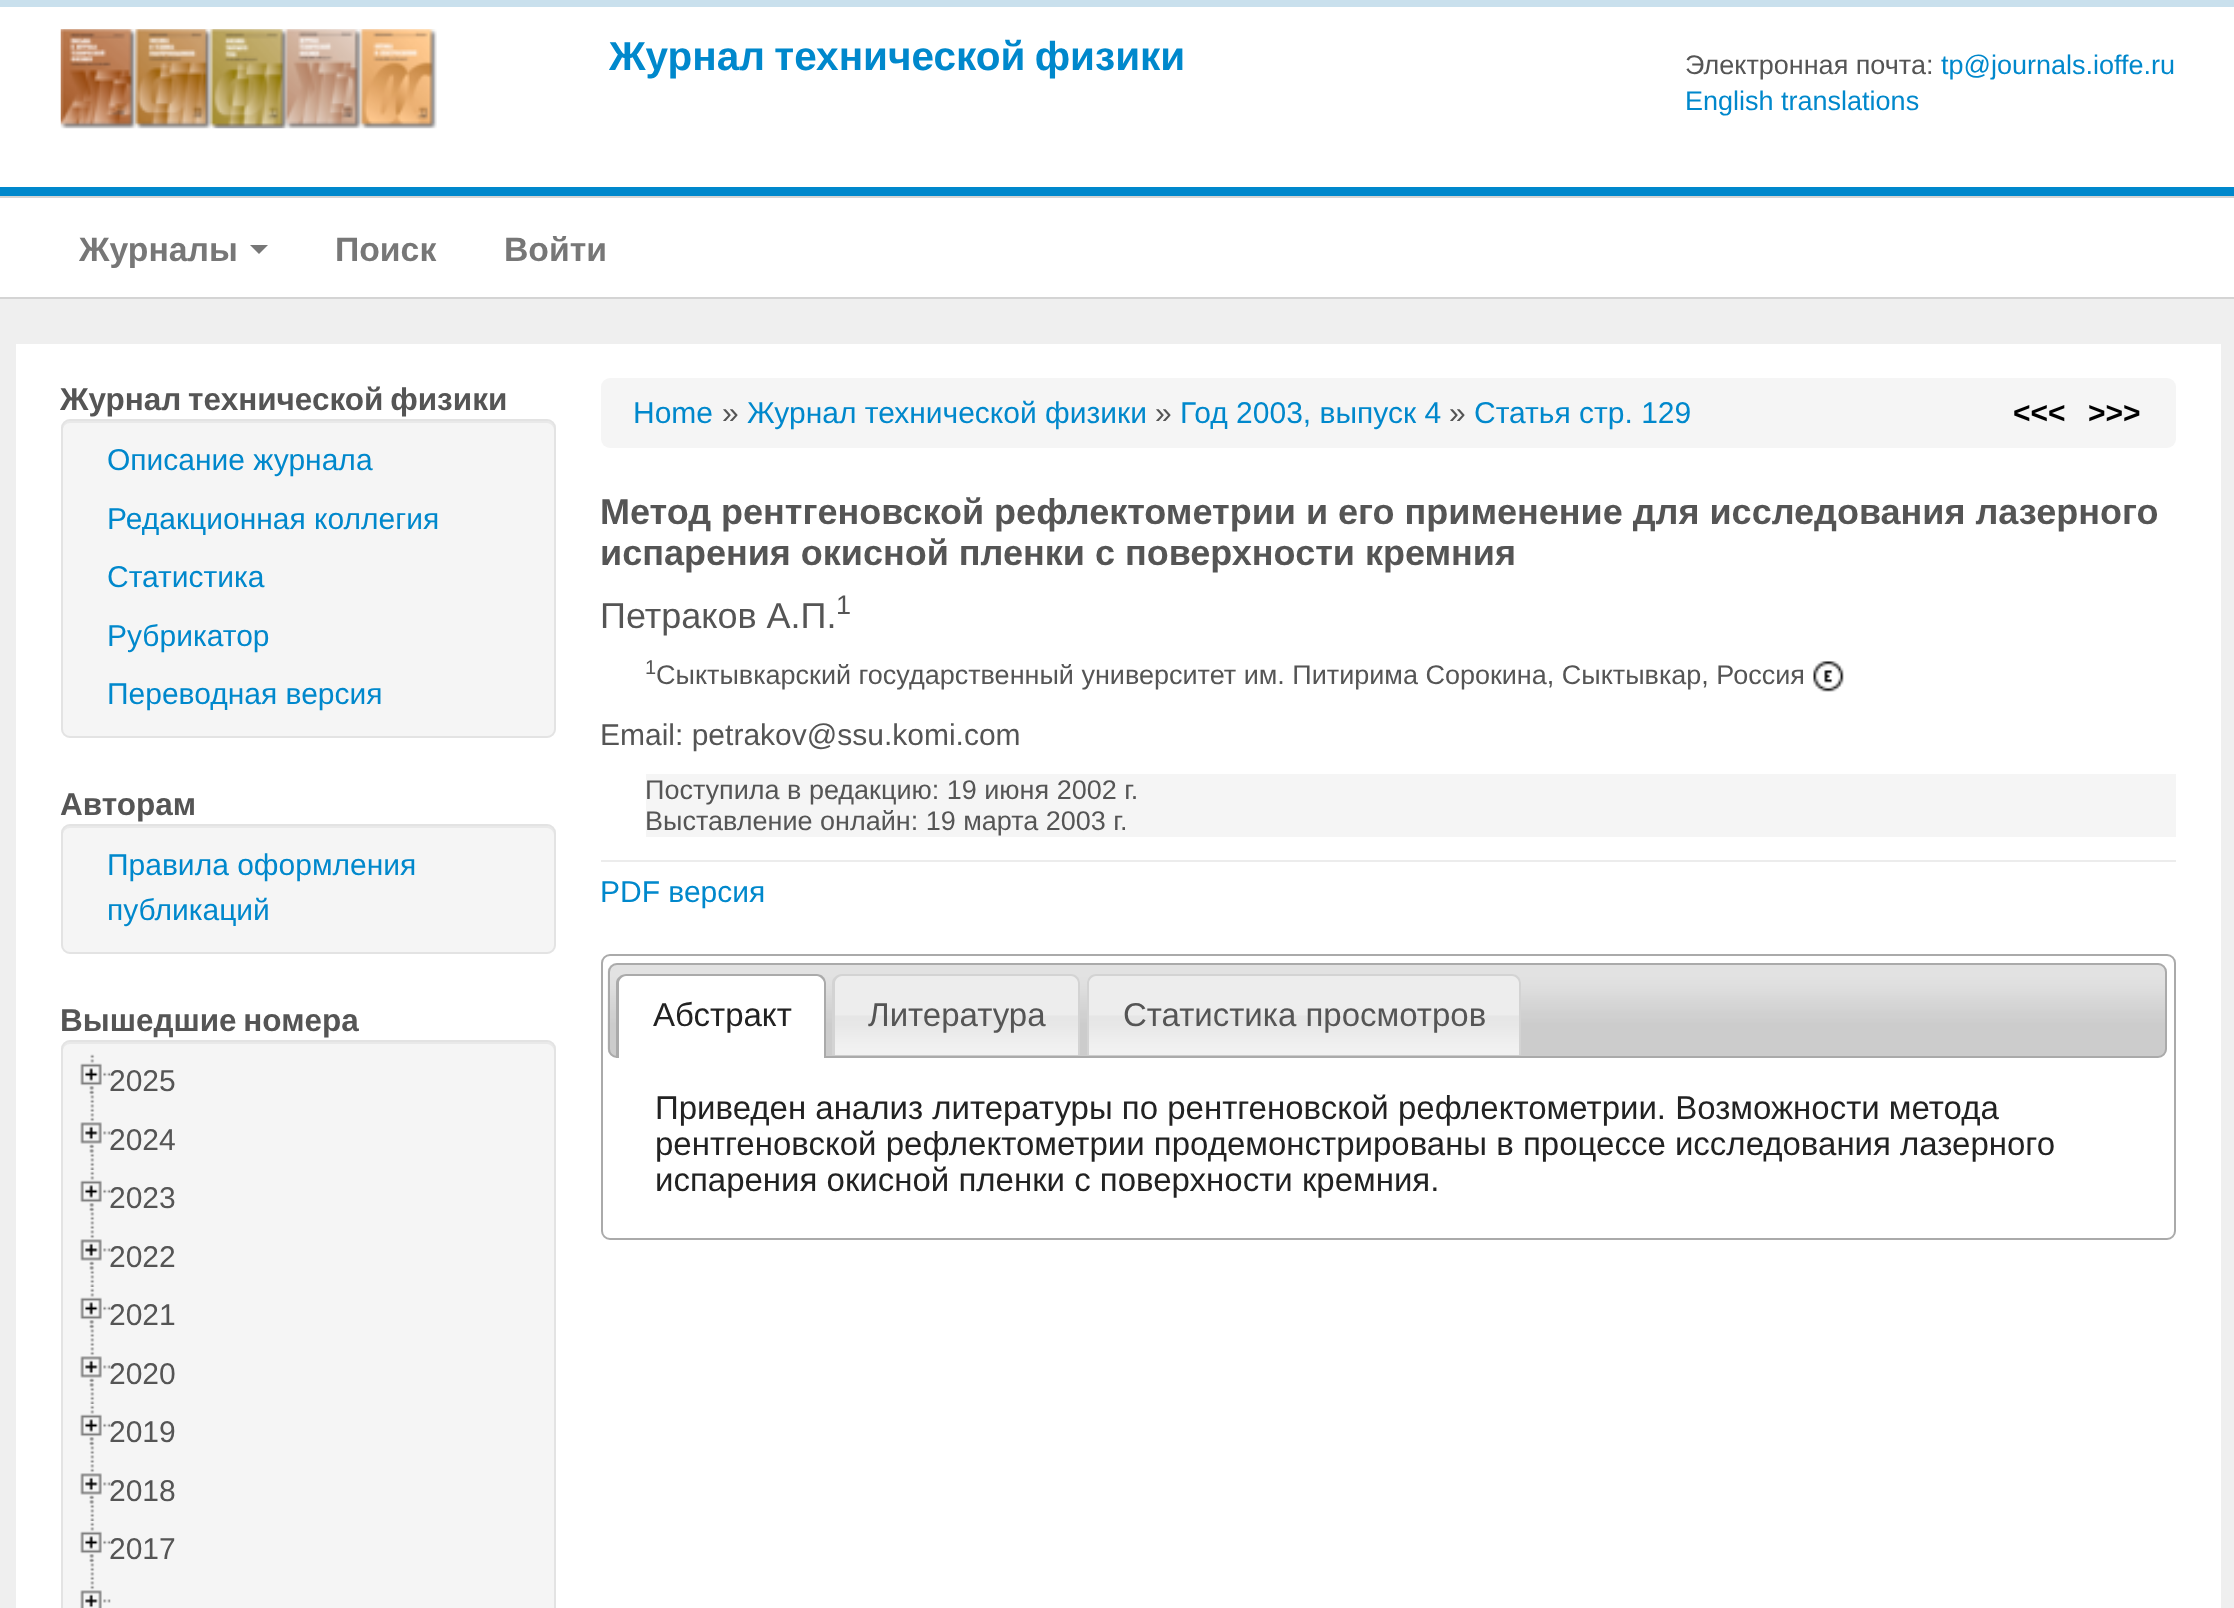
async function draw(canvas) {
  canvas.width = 2234;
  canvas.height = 1608;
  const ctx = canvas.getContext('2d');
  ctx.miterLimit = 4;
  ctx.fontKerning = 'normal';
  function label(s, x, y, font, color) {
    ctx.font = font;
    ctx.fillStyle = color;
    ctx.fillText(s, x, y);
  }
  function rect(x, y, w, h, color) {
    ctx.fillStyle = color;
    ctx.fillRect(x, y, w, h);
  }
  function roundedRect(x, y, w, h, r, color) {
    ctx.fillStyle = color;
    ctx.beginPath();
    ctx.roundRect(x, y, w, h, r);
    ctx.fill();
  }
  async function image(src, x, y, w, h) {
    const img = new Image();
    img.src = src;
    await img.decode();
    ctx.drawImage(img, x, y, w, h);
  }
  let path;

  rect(0, 0, 2234, 1608, '#efefef');
  rect(0, 7, 2234, 180, '#fff');
  rect(0, 0, 2234, 7, '#c9e0ed');
  rect(0, 187, 2234, 9, '#08c');
  await image('assets/img1.png', 60, 29, 377, 100);
  ctx.wordSpacing = '-2px';
  label('Журнал технической физики', 609, 70, 'bold 40.5px Liberation Sans', '#08c');
  ctx.wordSpacing = '0px';
  label('Электронная почта:', 1685, 74, '27px Liberation Sans', '#555');
  label('tp@journals.ioffe.ru', 1941, 74, '27px Liberation Sans', '#08c');
  label('English translations', 1685, 110, '27px Liberation Sans', '#08c');
  rect(0, 198, 2234, 99, '#fff');
  rect(0, 196, 2234, 2, '#d4d4d4');
  rect(0, 297, 2234, 2, '#d4d4d4');
  label('Журналы', 79, 261, 'bold 33.75px Liberation Sans', '#777');
  path = new Path2D('M250 245H268L259 254Z');
  ctx.fill(path);
  label('Поиск', 335, 261, 'bold 33.75px Liberation Sans', '#777');
  label('Войти', 504, 261, 'bold 33.75px Liberation Sans', '#777');
  rect(16, 344, 2205, 1264, '#fff');
  ctx.wordSpacing = '-2px';
  label('Журнал технической физики', 60, 410, 'bold 31.5px Liberation Sans', '#555');
  roundedRect(61, 419, 495, 319, 9, '#f5f5f5');
  ctx.fillStyle = '#e9e9e9';
  path = new Path2D('M70 423H547C550 423 554 426 554 430V428C554 424 551 421 547 421H70C66 421 63 424 63 428V430C63 426 66 423 70 423Z');
  ctx.fill(path);
  ctx.beginPath();
  ctx.roundRect(62, 420, 493, 317, 8);
  ctx.strokeStyle = '#e3e3e3';
  ctx.lineWidth = 2;
  ctx.stroke();
  ctx.wordSpacing = '0px';
  label('Описание журнала', 107, 470, '30px Liberation Sans', '#08c');
  label('Редакционная коллегия', 107, 529, '30px Liberation Sans', '#08c');
  label('Статистика', 107, 587, '30px Liberation Sans', '#08c');
  label('Рубрикатор', 107, 646, '30px Liberation Sans', '#08c');
  label('Переводная версия', 107, 704, '30px Liberation Sans', '#08c');
  label('Авторам', 60, 815, 'bold 31.5px Liberation Sans', '#555');
  roundedRect(61, 824, 495, 130, 9, '#f5f5f5');
  ctx.fillStyle = '#e9e9e9';
  path = new Path2D('M70 828H547C550 828 554 831 554 835V833C554 829 551 826 547 826H70C66 826 63 829 63 833V835C63 831 66 828 70 828Z');
  ctx.fill(path);
  ctx.beginPath();
  ctx.roundRect(62, 825, 493, 128, 8);
  ctx.stroke();
  label('Правила оформления', 107, 875, '30px Liberation Sans', '#08c');
  label('публикаций', 107, 920, '30px Liberation Sans', '#08c');
  ctx.wordSpacing = '-2px';
  label('Вышедшие номера', 60, 1031, 'bold 31.5px Liberation Sans', '#555');
  roundedRect(61, 1040, 495, 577, 9, '#f5f5f5');
  ctx.fillStyle = '#e9e9e9';
  path = new Path2D('M70 1044H547C550 1044 554 1047 554 1051V1049C554 1045 551 1042 547 1042H70C66 1042 63 1045 63 1049V1051C63 1047 66 1044 70 1044Z');
  ctx.fill(path);
  ctx.beginPath();
  ctx.roundRect(62, 1041, 493, 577, 8);
  ctx.stroke();
  await image('assets/img2.png', 90, 1054, 5, 58);
  await image('assets/img3.png', 80, 1063, 31, 32);
  ctx.wordSpacing = '0px';
  label('2025', 109, 1091, '30px Liberation Sans', '#555');
  await image('assets/img4.png', 90, 1113, 5, 57);
  await image('assets/img5.png', 80, 1122, 31, 31);
  label('2024', 109, 1150, '30px Liberation Sans', '#555');
  await image('assets/img2.png', 90, 1171, 5, 58);
  await image('assets/img3.png', 80, 1180, 31, 32);
  label('2023', 109, 1208, '30px Liberation Sans', '#555');
  await image('assets/img6.png', 90, 1230, 5, 57);
  await image('assets/img5.png', 80, 1239, 31, 31);
  label('2022', 109, 1267, '30px Liberation Sans', '#555');
  await image('assets/img7.png', 90, 1288, 5, 58);
  await image('assets/img3.png', 80, 1297, 31, 32);
  label('2021', 109, 1325, '30px Liberation Sans', '#555');
  await image('assets/img6.png', 90, 1347, 5, 57);
  await image('assets/img5.png', 80, 1356, 31, 31);
  label('2020', 109, 1384, '30px Liberation Sans', '#555');
  await image('assets/img2.png', 90, 1405, 5, 58);
  await image('assets/img3.png', 80, 1414, 31, 32);
  label('2019', 109, 1442, '30px Liberation Sans', '#555');
  await image('assets/img6.png', 90, 1464, 5, 57);
  await image('assets/img5.png', 80, 1473, 31, 31);
  label('2018', 109, 1501, '30px Liberation Sans', '#555');
  await image('assets/img2.png', 90, 1522, 5, 58);
  await image('assets/img8.png', 80, 1531, 31, 32);
  label('2017', 109, 1559, '30px Liberation Sans', '#555');
  await image('assets/img9.png', 90, 1581, 5, 9);
  await image('assets/img10.png', 80, 1590, 31, 18);
  roundedRect(601, 378, 1575, 70, 9, '#f5f5f5');
  label('Home', 633, 423, '30px Liberation Sans', '#08c');
  label('»', 722, 423, '30px Liberation Sans', '#555');
  label('Журнал технической физики', 747, 423, '30px Liberation Sans', '#08c');
  label('»', 1155, 423, '30px Liberation Sans', '#555');
  label('Год 2003, выпуск 4', 1180, 423, '30px Liberation Sans', '#08c');
  label('»', 1449, 423, '30px Liberation Sans', '#555');
  label('Статья стр. 129', 1474, 423, '30px Liberation Sans', '#08c');
  label('<<<', 2013, 423, 'bold 30px Liberation Sans', '#000');
  label('>>>', 2088, 423, 'bold 30px Liberation Sans', '#000');
  label('Метод рентгеновской рефлектометрии и его применение для исследования лазерного', 600, 524, 'bold 36px Liberation Sans', '#555');
  label('испарения окисной пленки с поверхности кремния', 600, 565, 'bold 36px Liberation Sans', '#555');
  label('Петраков А.П.', 600, 628, '36px Liberation Sans', '#555');
  label('1', 836, 614, '27px Liberation Sans', '#555');
  label('1', 645, 674, '20px Liberation Sans', '#555');
  label('Сыктывкарский государственный университет им. Питирима Сорокина, Сыктывкар, Россия', 656, 684, '27px Liberation Sans', '#555');
  await image('assets/img11.png', 1813, 661, 31, 31);
  label('Email: petrakov@ssu.komi.com', 600, 745, '30px Liberation Sans', '#555');
  rect(646, 774, 1530, 63, '#f5f5f5');
  label('Поступила в редакцию: 19 июня 2002 г.', 645, 799, '27px Liberation Sans', '#555');
  label('Выставление онлайн: 19 марта 2003 г.', 645, 830, '27px Liberation Sans', '#555');
  rect(601, 860, 1575, 2, '#ececec');
  label('PDF версия', 600, 902, '30px Liberation Sans', '#08c');
  ctx.beginPath();
  ctx.roundRect(602, 955, 1573, 284, 8);
  ctx.strokeStyle = '#aaa';
  ctx.stroke();
  await image('assets/img12.png', 607, 963, 1560, 94);
  ctx.beginPath();
  ctx.roundRect(609, 964, 1557, 93, 8);
  ctx.stroke();
  ctx.fillStyle = '#fff';
  ctx.beginPath();
  ctx.roundRect(617, 974, 209, 84, [9, 9, 0, 0]);
  ctx.fill();
  await image('assets/img13.png', 616, 976, 4, 82);
  ctx.fillStyle = '#aaa';
  path = new Path2D('M626 974H817C822 974 826 978 826 983V1058H616V983C616 978 621 974 626 974ZM626 976H817C820 976 824 980 824 983V1058H619V983C619 980 622 976 626 976Z');
  ctx.fill(path, 'evenodd');
  label('Абстракт', 653, 1026, '33px Liberation Sans', '#222');
  await image('assets/img14.png', 832, 975, 248, 80);
  ctx.fillStyle = '#d3d3d3';
  path = new Path2D('M842 974H1071C1076 974 1080 978 1080 983V1055H832V983C832 978 837 974 842 974ZM842 976H1071C1075 976 1078 980 1078 983V1055H835V983C835 980 838 976 842 976Z');
  ctx.fill(path, 'evenodd');
  label('Литература', 868, 1026, '33px Liberation Sans', '#555');
  await image('assets/img15.png', 1087, 974, 434, 81);
  ctx.fillStyle = '#d3d3d3';
  path = new Path2D('M1096 974H1512C1517 974 1521 978 1521 983V1055H1087V983C1087 978 1091 974 1096 974ZM1096 976H1512C1516 976 1519 980 1519 983V1055H1089V983C1089 980 1092 976 1096 976Z');
  ctx.fill(path, 'evenodd');
  label('Статистика просмотров', 1123, 1026, '33px Liberation Sans', '#555');
  label('Приведен анализ литературы по рентгеновской рефлектометрии. Возможности метода', 655, 1119, '33px Liberation Sans', '#222');
  label('рентгеновской рефлектометрии продемонстрированы в процессе исследования лазерного', 655, 1155, '33px Liberation Sans', '#222');
  label('испарения окисной пленки с поверхности кремния.', 655, 1191, '33px Liberation Sans', '#222');
}

draw(document.querySelector('canvas'));
